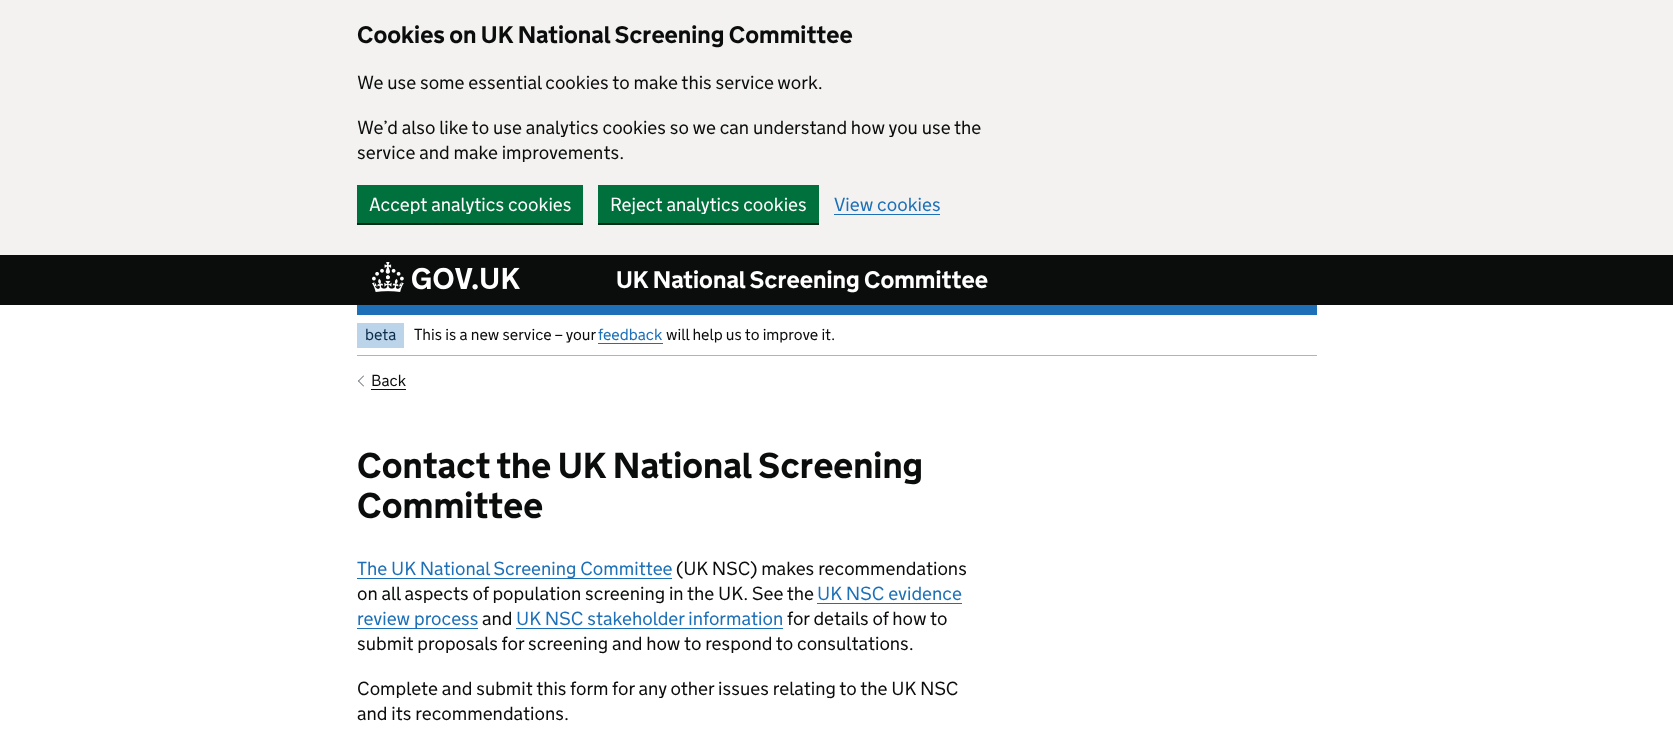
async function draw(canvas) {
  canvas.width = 1673;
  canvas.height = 746;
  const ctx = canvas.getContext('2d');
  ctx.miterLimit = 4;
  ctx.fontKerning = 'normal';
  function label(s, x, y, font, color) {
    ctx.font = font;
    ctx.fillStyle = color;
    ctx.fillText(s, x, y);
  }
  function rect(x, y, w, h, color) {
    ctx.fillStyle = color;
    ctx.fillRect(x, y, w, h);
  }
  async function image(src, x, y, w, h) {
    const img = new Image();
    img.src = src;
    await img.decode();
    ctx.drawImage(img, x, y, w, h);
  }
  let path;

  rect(0, 0, 1673, 746, '#fff');
  rect(0, 0, 1673, 255, '#f3f2f1');
  label('Cookies on UK National Screening Committee', 357, 43, 'bold 24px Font', '#0b0c0c');
  label('We use some essential cookies to make this service work.', 357, 89, '300 19px Font', '#0b0c0c');
  label('We’d also like to use analytics cookies so we can understand how you use the', 357, 134, '300 19px Font', '#0b0c0c');
  label('service and make improvements.', 357, 159, '300 19px Font', '#0b0c0c');
  rect(357, 223, 226, 2, '#002d18');
  rect(357, 185, 226, 38, '#00703c');
  label('Accept analytics cookies', 369, 211, '300 19px Font', '#fff');
  rect(598, 223, 221, 2, '#002d18');
  rect(598, 185, 221, 38, '#00703c');
  label('Reject analytics cookies', 610, 211, '300 19px Font', '#fff');
  label('View cookies', 834, 211, '300 19px Font', '#1d70b8');
  rect(834, 214, 106, 1, '#1d70b8');
  rect(0, 255, 1673, 50, '#0b0c0c');
  rect(357, 305, 960, 10, '#1d70b8');
  await image('assets/img1.png', 372, 262, 148, 30);
  label('UK National Screening Committee', 616, 288, 'bold 24px Font', '#fff');
  rect(357, 355, 960, 1, '#b1b4b6');
  rect(357, 323, 47, 25, '#bbd4ea');
  label('beta', 365, 340, '300 16px Font', '#0c2d4a');
  label('This is a new service – your', 414, 340, '300 16px Font', '#0b0c0c');
  label('feedback', 598, 340, '300 16px Font', '#1d70b8');
  rect(598, 343, 65, 1, '#1d70b8');
  label('will help us to improve it.', 666, 340, '300 16px Font', '#0b0c0c');
  ctx.fillStyle = '#505a5f';
  path = new Path2D('M363.5 386.5L358 381L358.5 380.5L364 386Z');
  ctx.fill(path);
  path = new Path2D('M358.5 381.5L358 381L363.5 375.5L364 376Z');
  ctx.fill(path);
  label('Back', 371, 386, '300 16px Font', '#0b0c0c');
  rect(371, 389, 35, 1, '#0b0c0c');
  label('Contact the UK National Screening', 357, 478, 'bold 36px Font', '#0b0c0c');
  label('Committee', 357, 518, 'bold 36px Font', '#0b0c0c');
  rect(357, 578, 315, 1, '#1d70b8');
  label('The UK National Screening Committee', 357, 575, '300 19px Font', '#1d70b8');
  label('(UK NSC) makes recommendations', 676, 575, '300 19px Font', '#0b0c0c');
  label('on all aspects of population screening in the UK. See the', 357, 600, '300 19px Font', '#0b0c0c');
  label('UK NSC evidence', 817, 600, '300 19px Font', '#1d70b8');
  rect(817, 603, 145, 1, '#1d70b8');
  label('review process', 357, 625, '300 19px Font', '#1d70b8');
  rect(357, 628, 121, 1, '#1d70b8');
  label('and', 482, 625, '300 19px Font', '#0b0c0c');
  label('UK NSC stakeholder information', 516, 625, '300 19px Font', '#1d70b8');
  rect(516, 628, 267, 1, '#1d70b8');
  label('for details of how to', 787, 625, '300 19px Font', '#0b0c0c');
  label('submit proposals for screening and how to respond to consultations.', 357, 650, '300 19px Font', '#0b0c0c');
  label('Complete and submit this form for any other issues relating to the UK NSC', 357, 695, '300 19px Font', '#0b0c0c');
  label('and its recommendations.', 357, 720, '300 19px Font', '#0b0c0c');
}

draw(document.querySelector('canvas'));
